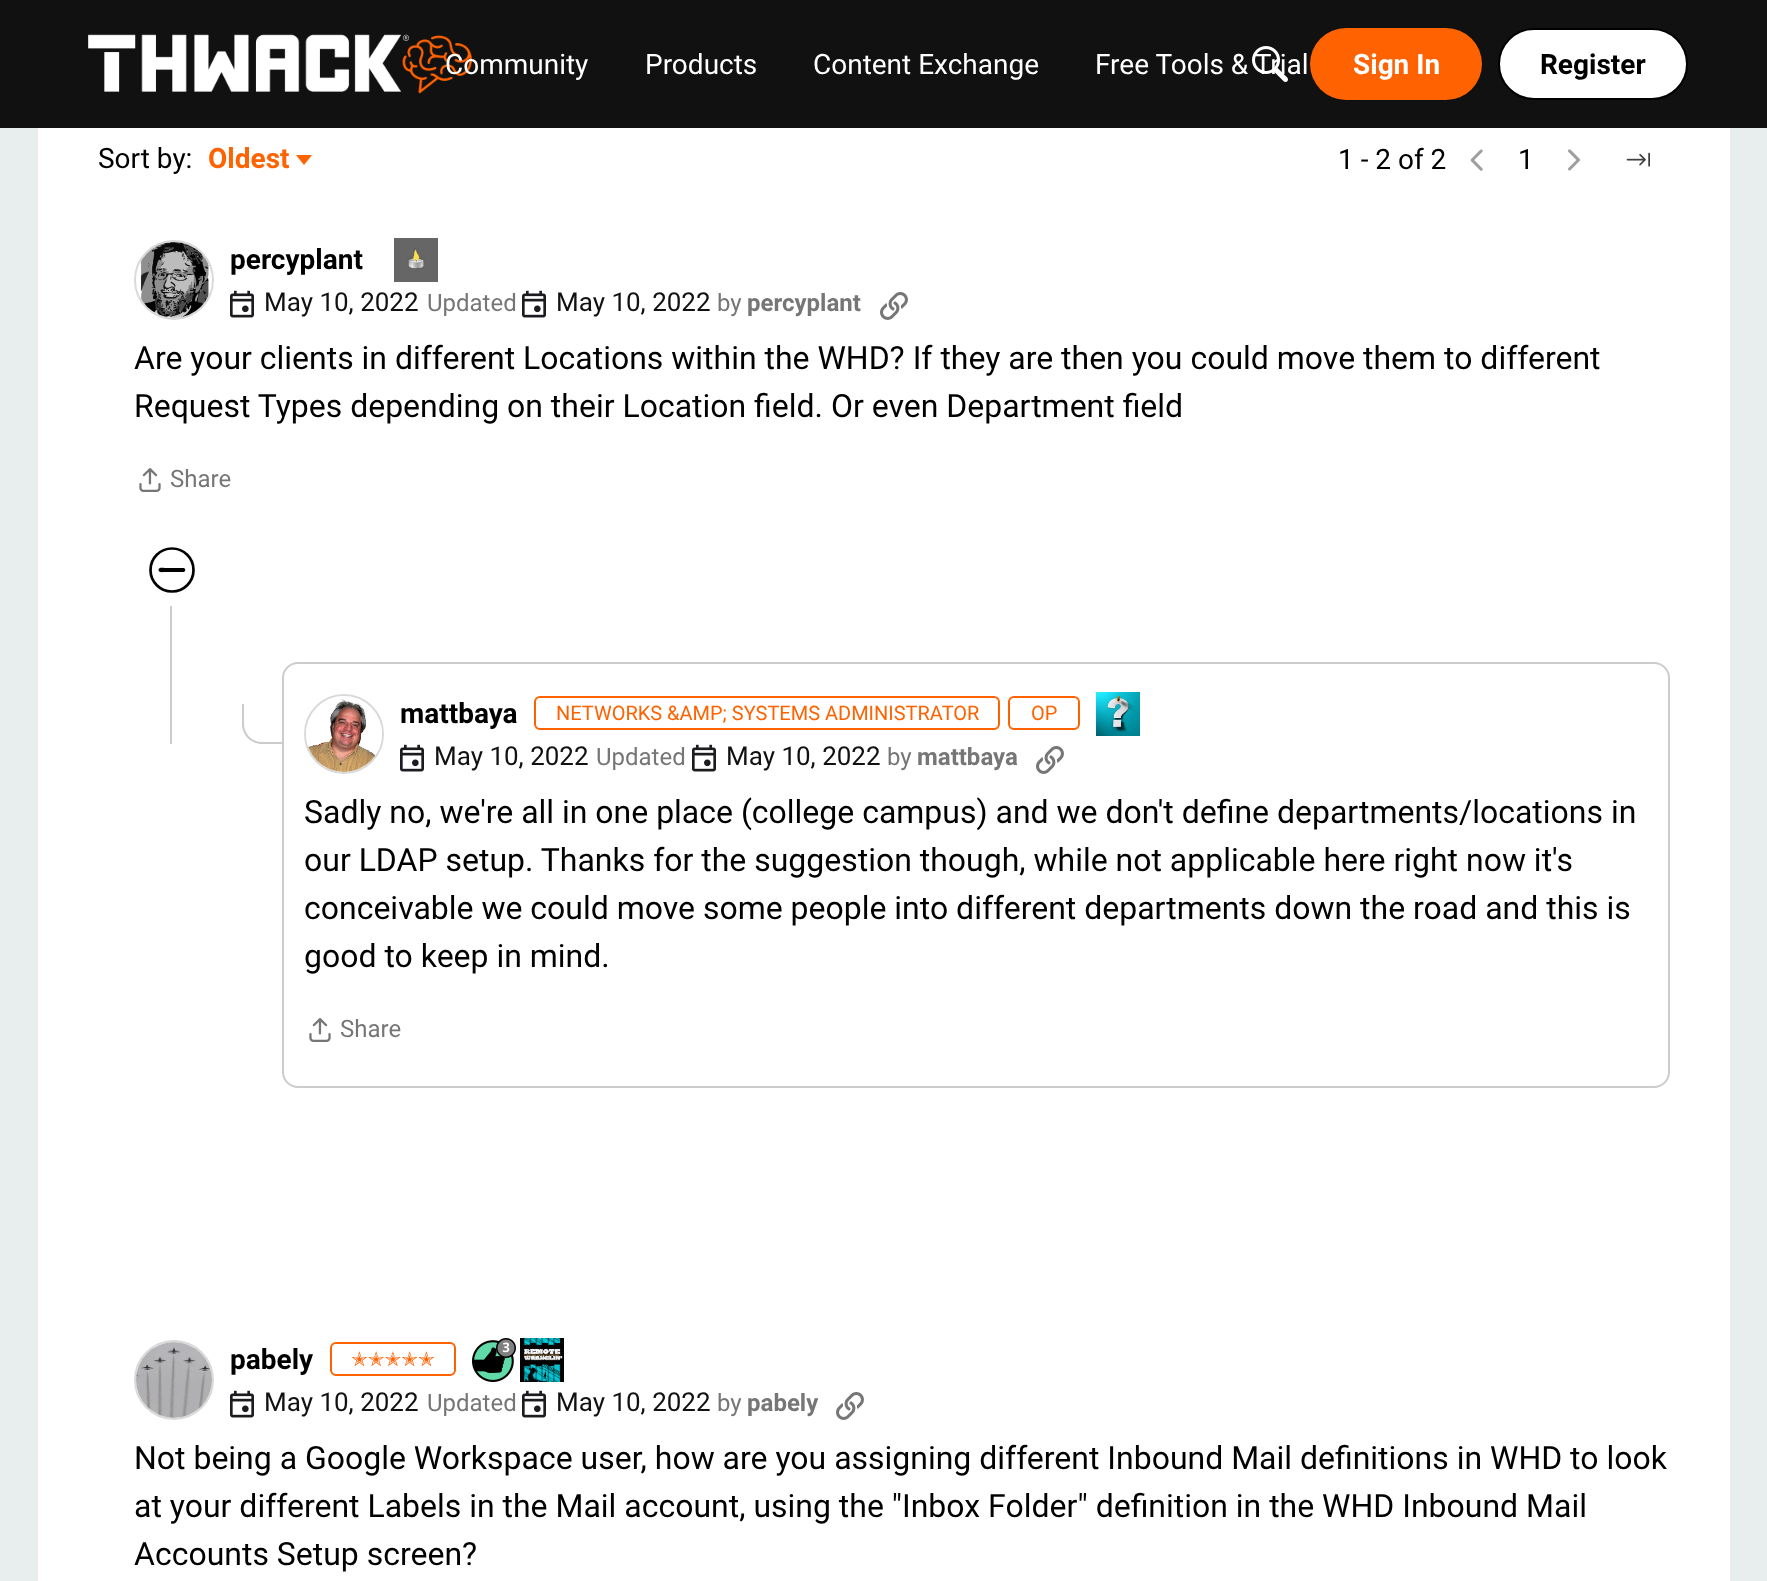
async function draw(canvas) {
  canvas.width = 1767;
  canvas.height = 1581;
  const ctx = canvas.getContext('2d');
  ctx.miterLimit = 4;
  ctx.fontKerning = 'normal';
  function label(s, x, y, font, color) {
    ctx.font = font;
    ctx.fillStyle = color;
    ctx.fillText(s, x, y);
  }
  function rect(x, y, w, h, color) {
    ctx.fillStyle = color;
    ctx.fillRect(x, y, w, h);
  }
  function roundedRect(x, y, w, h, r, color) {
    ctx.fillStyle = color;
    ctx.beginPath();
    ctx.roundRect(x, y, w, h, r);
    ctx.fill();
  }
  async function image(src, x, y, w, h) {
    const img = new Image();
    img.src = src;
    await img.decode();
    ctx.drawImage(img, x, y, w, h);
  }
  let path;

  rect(0, 0, 1767, 1581, '#e8eded');
  rect(38, 128, 1692, 1453, '#fff');
  ctx.strokeStyle = '#ebebeb';
  ctx.lineWidth = 2;
  ctx.strokeRect(37, 43, 1694, 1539);
  rect(0, 0, 1767, 128, '#111');
  await image('assets/img1.png', 88, 34, 384, 60);
  label('Community', 445, 74, '28px Roboto', '#fff');
  label('Products', 645, 74, '28px Roboto', '#fff');
  label('Content Exchange', 813, 74, '28px Roboto', '#fff');
  label('Free Tools & Trial', 1095, 74, '28px Roboto', '#fff');
  await image('assets/img2.png', 1252, 46, 36, 36);
  roundedRect(1310, 28, 172, 72, 36, '#ff6200');
  label('Sign In', 1353, 74, 'bold 28px Roboto', '#fff');
  ctx.beginPath();
  ctx.roundRect(1499, 29, 188, 70, 35);
  ctx.fill();
  ctx.strokeStyle = '#000';
  ctx.stroke();
  label('Register', 1540, 74, 'bold 28px Roboto', '#000');
  label('Sort by:', 98, 168, '28px Roboto', '#000');
  label('Oldest', 208, 168, 'bold 28px Roboto', '#ff6200');
  path = new Path2D('M296 155H312L304 165Z');
  ctx.fill(path);
  label('1 - 2 of 2', 1338, 169, '28px Roboto', '#000');
  await image('assets/img3.png', 1470, 149, 13, 22);
  label('1', 1518, 169, '28px Roboto', '#000');
  await image('assets/img4.png', 1568, 149, 12, 22);
  await image('assets/img5.png', 1626, 152, 24, 15);
  ctx.beginPath();
  ctx.arc(174, 280, 39, 0, 2 * Math.PI);
  ctx.strokeStyle = '#d9d9d9';
  ctx.stroke();
  await image('assets/img6.png', 140, 242, 69, 76);
  label('percyplant', 230, 269, 'bold 28px Roboto', '#000');
  await image('assets/img7.png', 394, 238, 44, 44);
  await image('assets/img8.png', 230, 290, 24, 28);
  label('May 10, 2022', 264, 311, '26px Roboto', '#111');
  label('Updated', 427, 311, '24px Roboto', '#767676');
  await image('assets/img8.png', 522, 290, 24, 28);
  label('May 10, 2022', 556, 311, '26px Roboto', '#111');
  label('by', 717, 311, '24px Roboto', '#767676');
  label('percyplant', 747, 311, 'bold 24px Roboto', '#767676');
  await image('assets/img9.png', 880, 292, 28, 28);
  label('Are your clients in different Locations within the WHD? If they are then you could move them to different', 134, 369, '32px Roboto', '#000');
  label('Request Types depending on their Location field. Or even Department field', 134, 417, '32px Roboto', '#000');
  await image('assets/img10.png', 139, 468, 22, 24);
  label('Share', 170, 487, '24px Roboto', '#767676');
  ctx.beginPath();
  ctx.arc(172, 570, 21.5, 0, 2 * Math.PI);
  ctx.strokeStyle = '#000';
  ctx.lineWidth = 2.7;
  ctx.stroke();
  ctx.fillStyle = '#000';
  path = new Path2D('M183.5 568C185.5 568 186 571 184 572H164.5C163 572 158.5 573 158.5 570C158.5 567 163 568 164.5 568Z');
  ctx.fill(path, 'evenodd');
  rect(170, 606, 2, 138, '#ccc');
  ctx.beginPath();
  ctx.roundRect(283, 663, 1386, 424, 15);
  ctx.strokeStyle = '#ccc';
  ctx.lineWidth = 2;
  ctx.stroke();
  path = new Path2D('M242 704H282V744H262C251 744 242 735 242 724ZM244 704H282V742H262C252 742 244 734 244 724Z');
  ctx.fill(path, 'evenodd');
  ctx.beginPath();
  ctx.arc(344, 734, 39, 0, 2 * Math.PI);
  ctx.strokeStyle = '#d9d9d9';
  ctx.stroke();
  await image('assets/img11.png', 306, 696, 76, 76);
  label('mattbaya', 400, 723, 'bold 28px Roboto', '#000');
  ctx.beginPath();
  ctx.roundRect(535, 697, 464, 32, 5);
  ctx.strokeStyle = '#ff6200';
  ctx.stroke();
  label('NETWORKS &AMP; SYSTEMS ADMINISTRATOR', 556, 720, '20px Roboto', '#ff6200');
  ctx.beginPath();
  ctx.roundRect(1009, 697, 70, 32, 5);
  ctx.stroke();
  label('OP', 1031, 720, '20px Roboto', '#ff6200');
  await image('assets/img12.png', 1096, 692, 44, 44);
  await image('assets/img8.png', 400, 744, 24, 28);
  label('May 10, 2022', 434, 765, '26px Roboto', '#111');
  label('Updated', 596, 765, '24px Roboto', '#767676');
  await image('assets/img8.png', 692, 744, 24, 28);
  label('May 10, 2022', 726, 765, '26px Roboto', '#111');
  label('by', 887, 765, '24px Roboto', '#767676');
  label('mattbaya', 917, 765, 'bold 24px Roboto', '#767676');
  await image('assets/img9.png', 1036, 746, 28, 28);
  label('Sadly no, we\'re all in one place (college campus) and we don\'t define departments/locations in', 304, 823, '32px Roboto', '#000');
  label('our LDAP setup. Thanks for the suggestion though, while not applicable here right now it\'s', 304, 871, '32px Roboto', '#000');
  label('conceivable we could move some people into different departments down the road and this is', 304, 919, '32px Roboto', '#000');
  label('good to keep in mind.', 304, 967, '32px Roboto', '#000');
  await image('assets/img10.png', 309, 1018, 22, 24);
  label('Share', 340, 1037, '24px Roboto', '#767676');
  ctx.beginPath();
  ctx.arc(174, 1380, 39, 0, 2 * Math.PI);
  ctx.strokeStyle = '#d9d9d9';
  ctx.stroke();
  await image('assets/img13.png', 136, 1342, 76, 76);
  label('pabely', 230, 1369, 'bold 28px Roboto', '#000');
  ctx.beginPath();
  ctx.roundRect(331, 1343, 124, 32, 5);
  ctx.strokeStyle = '#ff6200';
  ctx.stroke();
  label('✭✭✭✭✭', 351, 1366, '20px DejaVu Sans', '#ff6200');
  await image('assets/img14.png', 472, 1338, 44, 44);
  await image('assets/img15.png', 520, 1338, 44, 44);
  await image('assets/img8.png', 230, 1390, 24, 28);
  label('May 10, 2022', 264, 1411, '26px Roboto', '#111');
  label('Updated', 427, 1411, '24px Roboto', '#767676');
  await image('assets/img8.png', 522, 1390, 24, 28);
  label('May 10, 2022', 556, 1411, '26px Roboto', '#111');
  label('by', 717, 1411, '24px Roboto', '#767676');
  label('pabely', 747, 1411, 'bold 24px Roboto', '#767676');
  await image('assets/img9.png', 836, 1392, 28, 28);
  label('Not being a Google Workspace user, how are you assigning different Inbound Mail definitions in WHD to look', 134, 1469, '32px Roboto', '#000');
  label('at your different Labels in the Mail account, using the "Inbox Folder" definition in the WHD Inbound Mail', 134, 1517, '32px Roboto', '#000');
  label('Accounts Setup screen?', 134, 1565, '32px Roboto', '#000');
}

draw(document.querySelector('canvas'));
